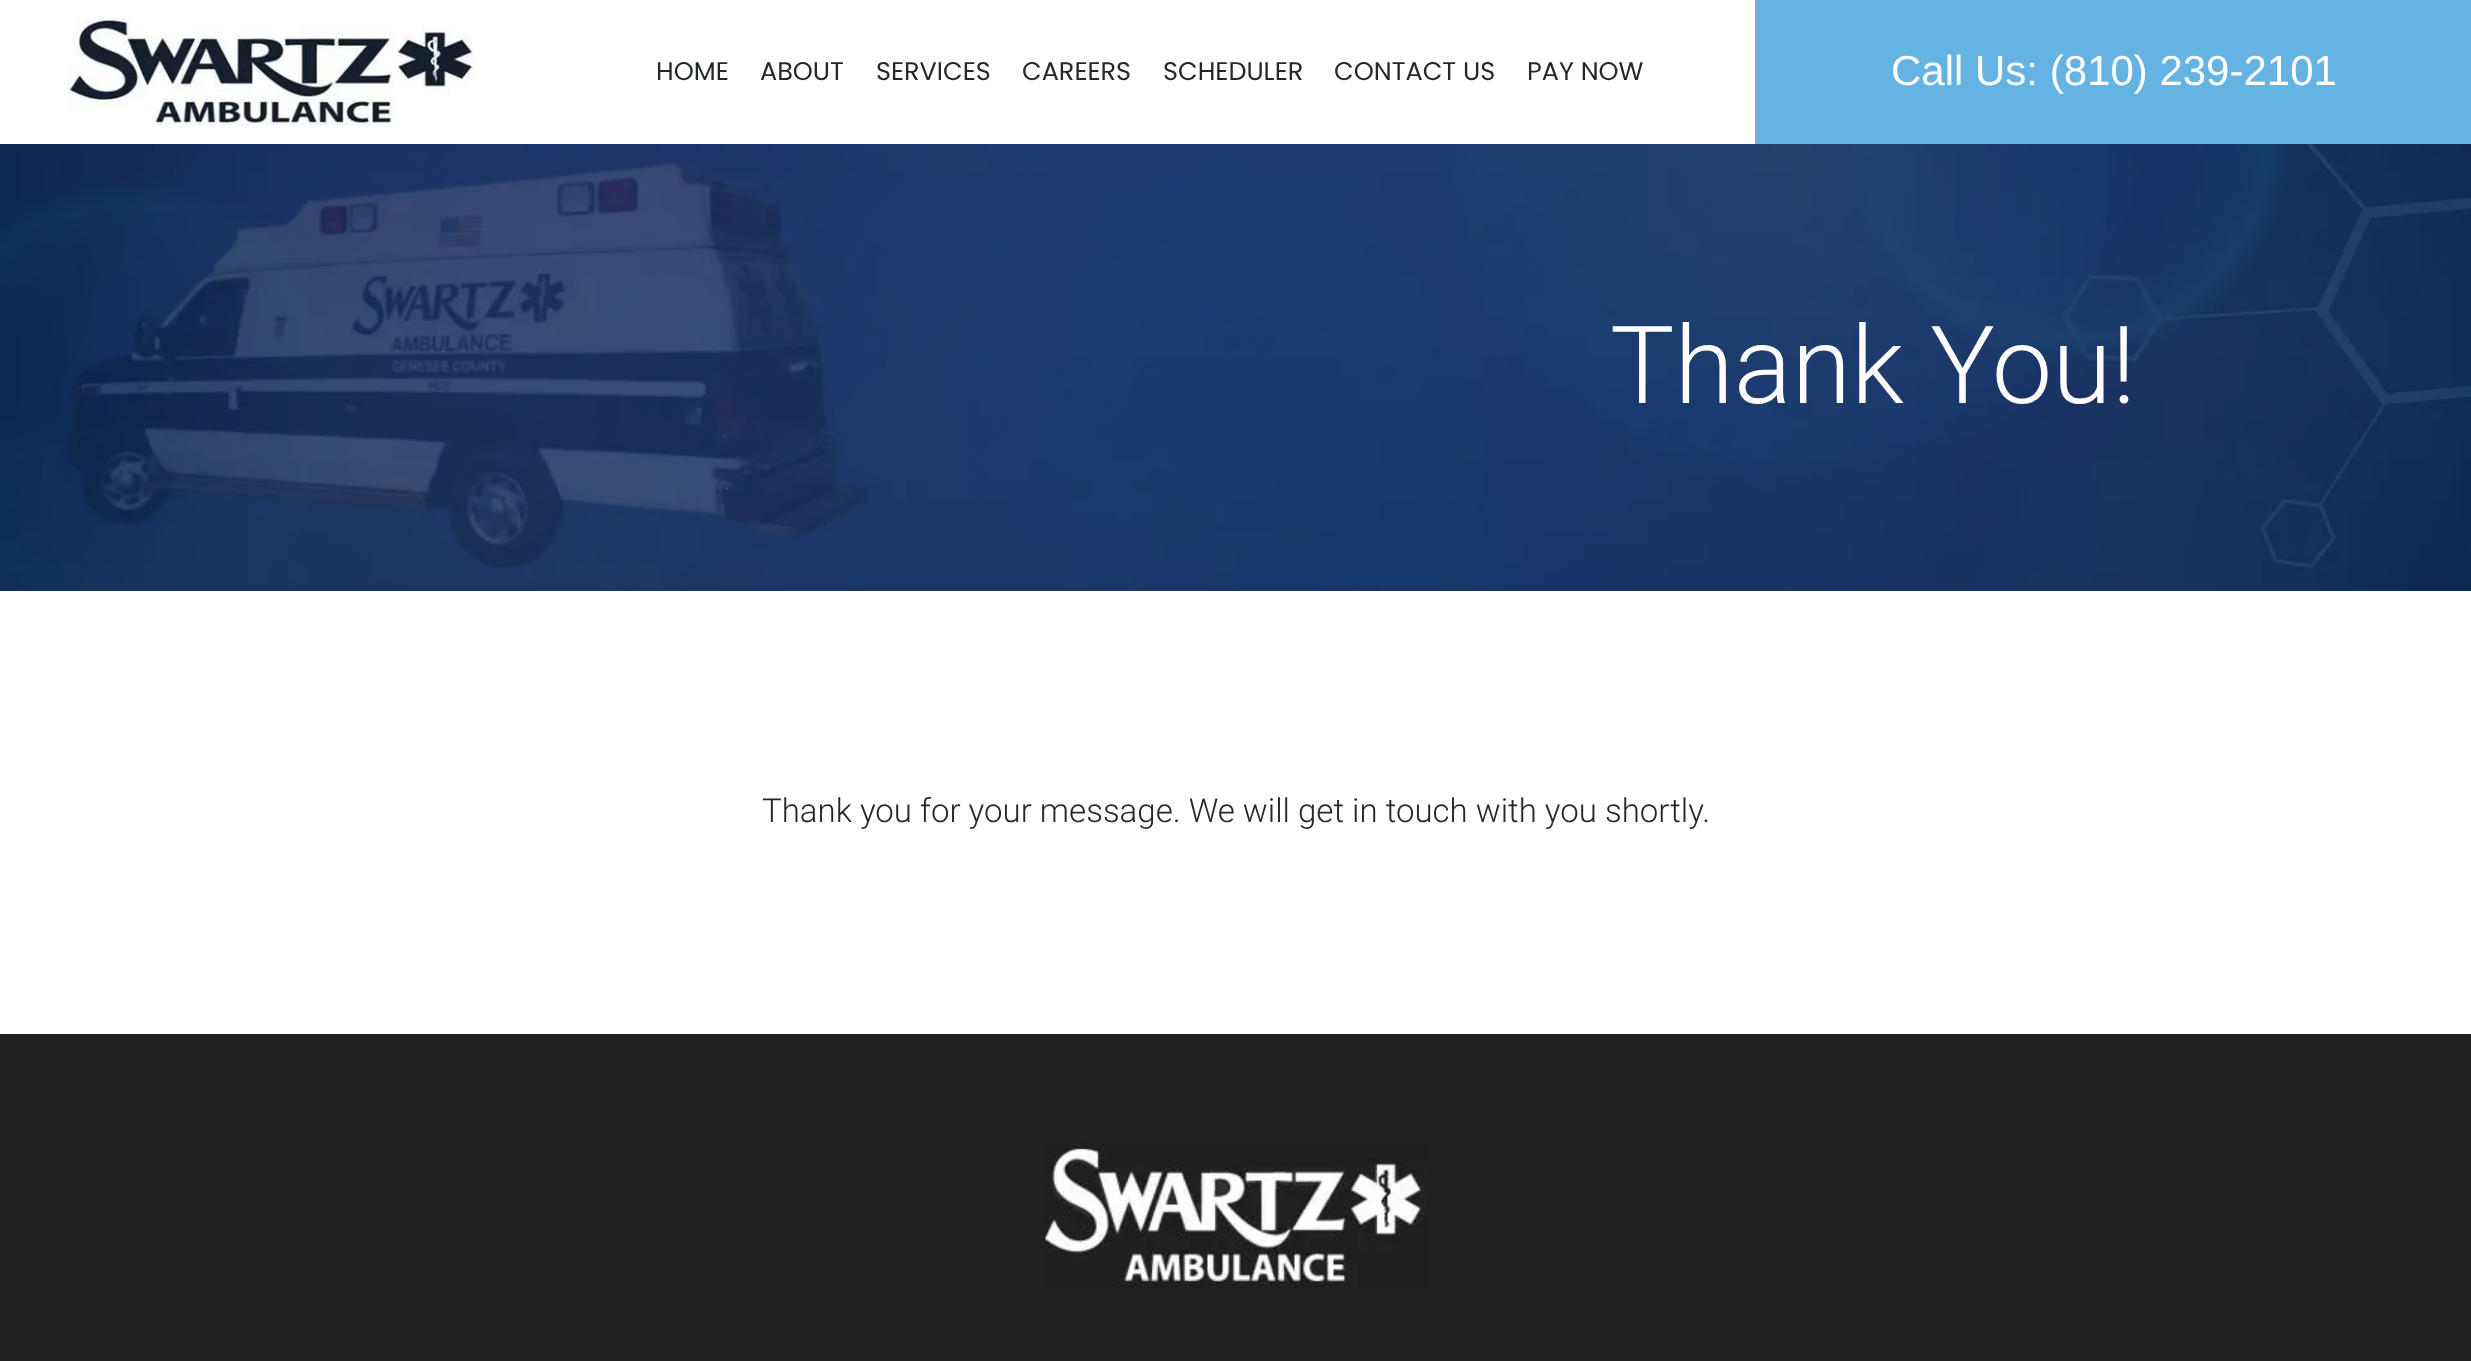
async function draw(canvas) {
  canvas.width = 2471;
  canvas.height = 1361;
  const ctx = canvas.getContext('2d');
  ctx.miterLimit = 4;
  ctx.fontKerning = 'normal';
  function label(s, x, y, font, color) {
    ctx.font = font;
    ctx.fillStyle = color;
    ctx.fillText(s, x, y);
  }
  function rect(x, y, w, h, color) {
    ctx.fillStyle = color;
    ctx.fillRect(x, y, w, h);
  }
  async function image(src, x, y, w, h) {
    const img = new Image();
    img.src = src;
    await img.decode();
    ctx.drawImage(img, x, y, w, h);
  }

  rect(0, 0, 2471, 1361, '#fff');
  await image('assets/img1.png', 67, 18, 409, 108);
  label('HOME', 656, 80, '25.5px Poppins', '#25282a');
  label('ABOUT', 760, 80, '25.5px Poppins', '#25282a');
  label('SERVICES', 876, 80, '25.5px Poppins', '#25282a');
  label('CAREERS', 1022, 80, '25.5px Poppins', '#25282a');
  label('SCHEDULER', 1163, 80, '25.5px Poppins', '#25282a');
  label('CONTACT US', 1334, 80, '25.5px Poppins', '#25282a');
  label('PAY NOW', 1527, 80, '25.5px Poppins', '#25282a');
  rect(1755, 0, 716, 144, '#64b3e3');
  label('Call Us: (810) 239-2101', 1891, 85, '42px Liberation Sans', '#fff');
  await image('assets/img2.png', 0, 144, 2471, 447);
  label('Thank You!', 1610, 403, '300 108px Roboto', '#fff');
  label('Thank you for your message. We will get in touch with you shortly.', 762, 822, '300 33px Roboto', '#25282a');
  rect(0, 1034, 2471, 327, '#202020');
  await image('assets/img3.png', 1045, 1143, 383, 145);
}

draw(document.querySelector('canvas'));
